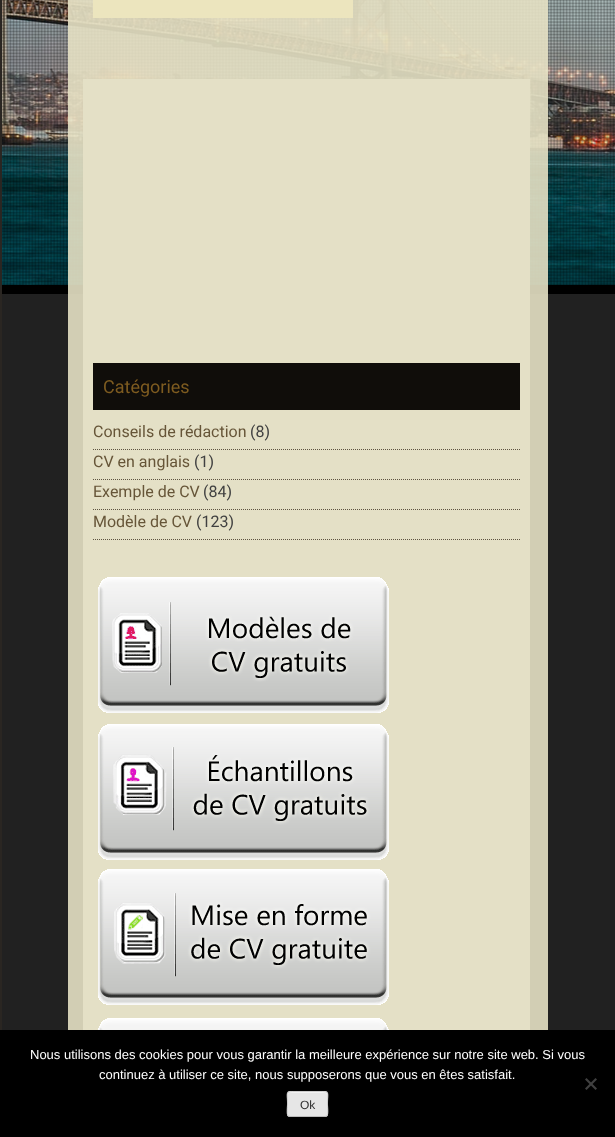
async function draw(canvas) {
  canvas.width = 615;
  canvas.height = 1137;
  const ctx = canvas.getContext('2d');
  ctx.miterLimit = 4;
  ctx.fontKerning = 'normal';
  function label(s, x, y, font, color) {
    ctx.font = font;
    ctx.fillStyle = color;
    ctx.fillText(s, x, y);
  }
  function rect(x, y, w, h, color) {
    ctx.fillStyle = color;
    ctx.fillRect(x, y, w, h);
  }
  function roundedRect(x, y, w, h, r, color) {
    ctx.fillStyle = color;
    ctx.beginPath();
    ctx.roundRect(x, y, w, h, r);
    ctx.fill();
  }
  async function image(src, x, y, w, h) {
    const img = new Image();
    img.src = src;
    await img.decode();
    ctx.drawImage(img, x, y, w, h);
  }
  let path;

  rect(0, 0, 615, 1137, '#212121');
  await image('assets/img1.png', 2, 0, 613, 285);
  await image('assets/img2.png', 2, 0, 613, 285);
  rect(2, 285, 613, 9, '#000');
  rect(0, 0, 2, 1030, '#2a2622');
  rect(68, 0, 480, 1030, '#e6e1c4e6');
  rect(93, 0, 260, 18, '#ece5be');
  rect(83, 79, 447, 951, '#e4e0c6');
  rect(93, 363, 427, 47, '#100d0a');
  label('Catégories', 103, 393, '18px Roboto', '#7e5b20');
  path = new Path2D('M93 449.5H520');
  ctx.strokeStyle = '#5e5340';
  ctx.setLineDash([1, 1]);
  ctx.stroke(path);
  label('Conseils de rédaction', 93, 437, '16px Roboto', '#665538');
  label('(8)', 250, 437, '16px Roboto', '#404040');
  path = new Path2D('M93 479.5H520');
  ctx.stroke(path);
  label('CV en anglais', 93, 467, '16px Roboto', '#665538');
  label('(1)', 194, 467, '16px Roboto', '#404040');
  path = new Path2D('M93 509.5H520');
  ctx.stroke(path);
  label('Exemple de CV', 93, 497, '16px Roboto', '#665538');
  label('(84)', 203, 497, '16px Roboto', '#404040');
  path = new Path2D('M93 539.5H520');
  ctx.stroke(path);
  label('Modèle de CV', 93, 527, '16px Roboto', '#665538');
  label('(123)', 196, 527, '16px Roboto', '#404040');
  await image('assets/img3.png', 98, 577, 291, 453);
  rect(0, 1030, 615, 107, '#000');
  label('Nous utilisons des cookies pour vous garantir la meilleure expérience sur notre site web. Si vous', 30, 1059, '13px Liberation Sans', '#fff');
  label('continuez à utiliser ce site, nous supposerons que vous en êtes satisfait.', 99, 1079, '13px Liberation Sans', '#fff');
  ctx.fillStyle = '#404040';
  path = new Path2D('M595.5 1078L597 1079.5L586.5 1090L585 1088.5Z');
  ctx.fill(path);
  path = new Path2D('M585 1079.5L586.5 1078L597 1088.5L595.5 1090Z');
  ctx.fill(path);
  roundedRect(287, 1091, 41, 26, 3, '#e6e6e6');
  ctx.fillStyle = '#f3f3f3';
  path = new Path2D('M290 1093H325C326 1093 327 1094 327 1095C327 1090.5 323 1092 319 1092H296C292 1092 288 1090.5 288 1095C288 1094 289 1093 290 1093Z');
  ctx.fill(path);
  path = new Path2D('M327 1116L325 1116.5H290L288 1116');
  ctx.strokeStyle = '#bbb';
  ctx.setLineDash([]);
  ctx.stroke(path);
  path = new Path2D('M288 1116C286.5 1114 287.5 1106.5 287.5 1104C287.5 1092 284.5 1091.5 296 1091.5H319C330.5 1091.5 327.5 1092 327.5 1104C327.5 1106.5 328.5 1114 327 1116');
  ctx.strokeStyle = '#ccc';
  ctx.stroke(path);
  label('Ok', 300, 1109, '12px Liberation Sans', '#2e2e2e');
}

draw(document.querySelector('canvas'));
